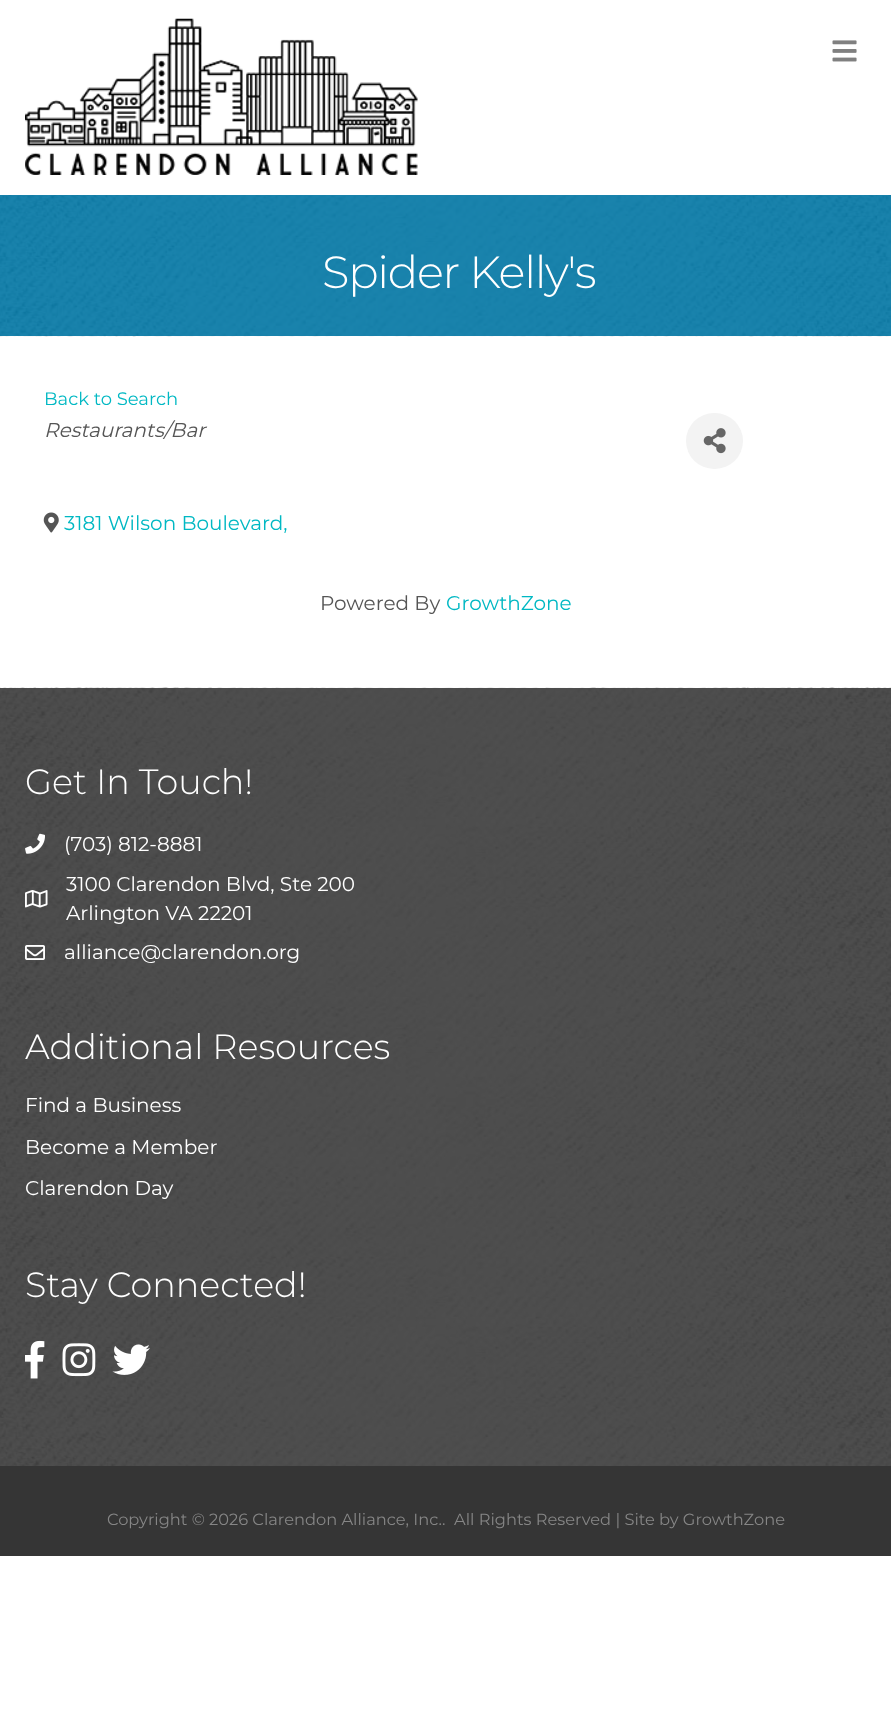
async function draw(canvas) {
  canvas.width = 891;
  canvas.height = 1718;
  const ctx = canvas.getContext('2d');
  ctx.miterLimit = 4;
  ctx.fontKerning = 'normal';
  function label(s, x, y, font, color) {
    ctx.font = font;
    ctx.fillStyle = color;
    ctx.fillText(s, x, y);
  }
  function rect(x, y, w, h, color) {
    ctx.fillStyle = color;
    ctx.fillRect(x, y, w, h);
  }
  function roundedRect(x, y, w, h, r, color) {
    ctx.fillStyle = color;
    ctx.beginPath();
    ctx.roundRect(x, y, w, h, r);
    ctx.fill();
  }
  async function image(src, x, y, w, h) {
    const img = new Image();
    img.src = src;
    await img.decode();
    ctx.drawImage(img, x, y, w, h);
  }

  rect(0, 0, 891, 1718, '#fff');
  await image('assets/img1.png', 25, 18, 393, 157);
  await image('assets/img2.png', 832, 40, 25, 22);
  await image('assets/img3.png', 0, 195, 891, 142);
  ctx.letterSpacing = '-1.25px';
  label('Spider Kelly\'s', 322, 288, '300 45px Montserrat', '#fff');
  ctx.letterSpacing = '0px';
  label('Back to Search', 44, 405, '18px Montserrat', '#00b8c3');
  label('Restaurants/Bar', 44, 437, 'italic 20px Montserrat', '#555');
  roundedRect(686, 413, 57, 56, 28, '#f3f3f3');
  await image('assets/img4.png', 703, 428, 23, 26);
  await image('assets/img5.png', 43, 512, 16, 21);
  label('3181 Wilson Boulevard,', 64, 530, '20px Montserrat', '#00b8c3');
  label('Powered By', 320, 610, '20px Montserrat', '#555');
  label('GrowthZone', 446, 610, '20px Montserrat', '#00b8c3');
  await image('assets/img6.png', 0, 687, 891, 779);
  label('Get In Touch!', 25, 794, '300 35px Montserrat', '#fff');
  await image('assets/img7.png', 25, 833, 20, 21);
  label('(703) 812-8881', 64, 851, '20px Montserrat', '#fff');
  await image('assets/img8.png', 25, 890, 23, 18);
  label('3100 Clarendon Blvd, Ste 200', 66, 891, '20px Montserrat', '#fff');
  label('Arlington VA 22201', 66, 920, '20px Montserrat', '#fff');
  await image('assets/img9.png', 25, 945, 20, 15);
  label('alliance@clarendon.org', 64, 959, '20px Montserrat', '#fff');
  label('Additional Resources', 25, 1059, '300 35px Montserrat', '#fff');
  label('Find a Business', 25, 1112, '20px Montserrat', '#fff');
  label('Become a Member', 25, 1154, '20px Montserrat', '#fff');
  label('Clarendon Day', 25, 1195, '20px Montserrat', '#fff');
  label('Stay Connected!', 25, 1297, '300 35px Montserrat', '#fff');
  await image('assets/img10.png', 25, 1340, 20, 39);
  await image('assets/img11.png', 62, 1343, 34, 34);
  await image('assets/img12.png', 112, 1344, 38, 31);
  rect(0, 1466, 891, 90, '#353535');
  label('Copyright © 2026 Clarendon Alliance, Inc..', 107, 1525, '16.25px Montserrat', '#868686');
  label('All Rights Reserved | Site by GrowthZone', 454, 1525, '16.25px Montserrat', '#868686');
}

draw(document.querySelector('canvas'));
